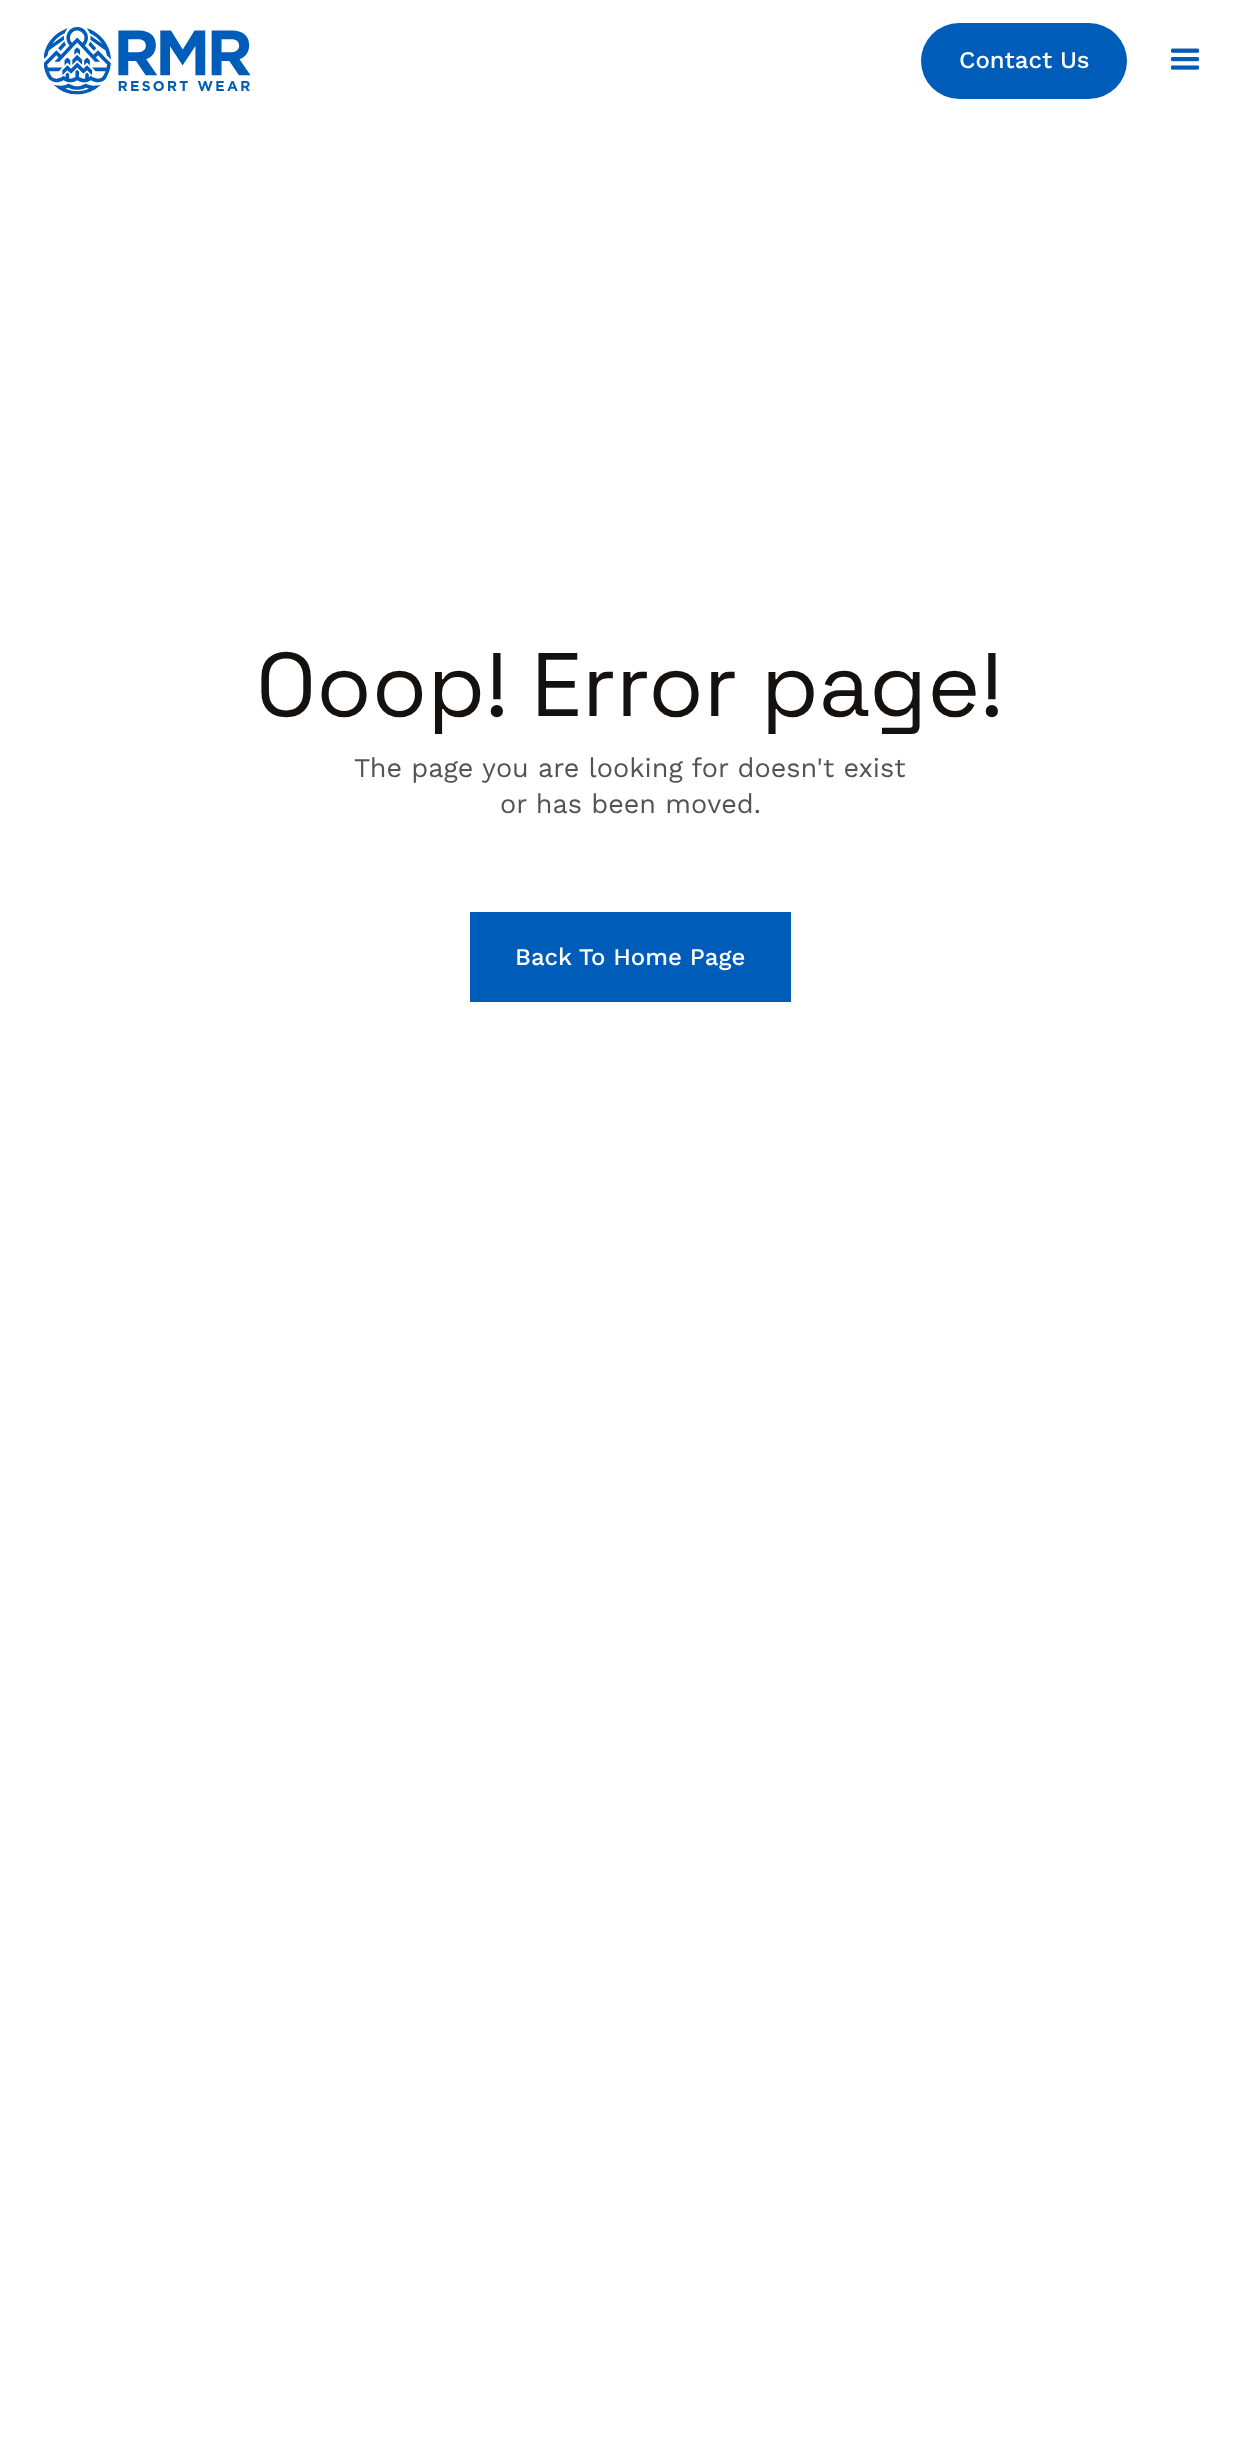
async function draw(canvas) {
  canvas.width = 1259;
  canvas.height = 2437;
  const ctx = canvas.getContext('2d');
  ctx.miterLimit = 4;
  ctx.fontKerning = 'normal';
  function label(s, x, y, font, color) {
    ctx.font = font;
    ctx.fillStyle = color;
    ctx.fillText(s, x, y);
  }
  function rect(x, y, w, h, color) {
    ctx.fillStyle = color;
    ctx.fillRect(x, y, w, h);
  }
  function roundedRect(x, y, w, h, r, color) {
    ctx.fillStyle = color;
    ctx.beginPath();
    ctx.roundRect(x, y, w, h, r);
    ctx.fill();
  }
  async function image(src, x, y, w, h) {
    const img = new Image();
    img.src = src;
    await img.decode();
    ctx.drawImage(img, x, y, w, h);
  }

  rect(0, 0, 1259, 2437, '#fff');
  await image('assets/img1.png', 44, 27, 207, 68);
  roundedRect(921, 23, 206, 76, 38, '#005cb9');
  label('Contact Us', 959, 68, '500 24px Work Sans', '#fff');
  await image('assets/img2.png', 1170, 48, 30, 22);
  label('Ooop! Error page!', 256, 716, '90px Space Grotesk', '#14110e');
  label('The page you are looking for doesn\'t exist', 354, 777, '27px Work Sans', '#525354');
  label('or has been moved.', 500, 813, '27px Work Sans', '#525354');
  rect(470, 912, 321, 90, '#005cb9');
  label('Back To Home Page', 515, 965, '500 24px Work Sans', '#fff');
}

draw(document.querySelector('canvas'));
